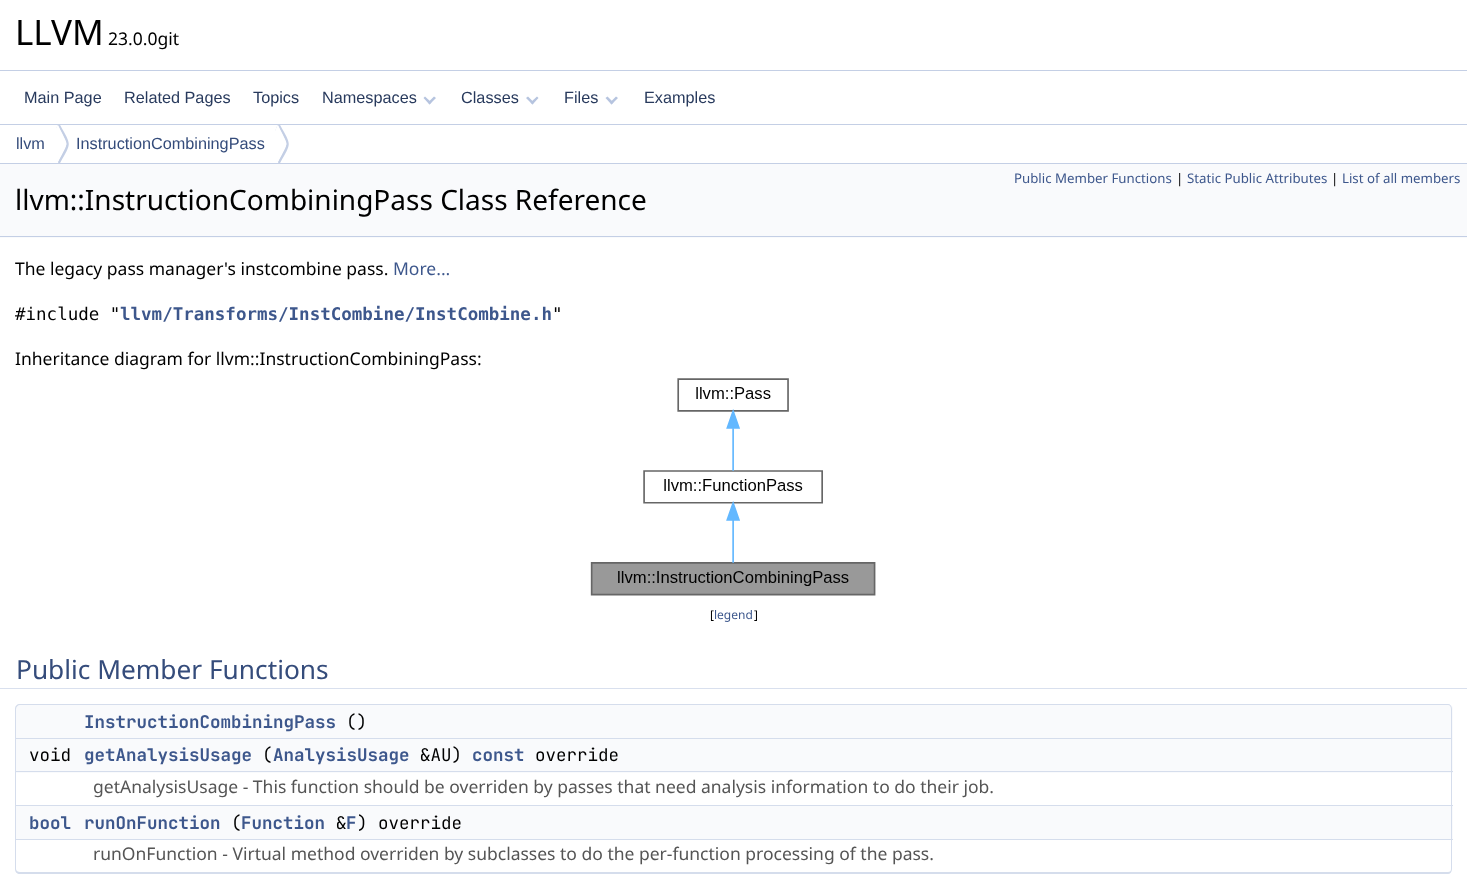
async function draw(canvas) {
  canvas.width = 1467;
  canvas.height = 880;
  const ctx = canvas.getContext('2d');
  ctx.miterLimit = 4;
  ctx.fontKerning = 'normal';
  function label(s, x, y, font, color) {
    ctx.font = font;
    ctx.fillStyle = color;
    ctx.fillText(s, x, y);
  }
  function rect(x, y, w, h, color) {
    ctx.fillStyle = color;
    ctx.fillRect(x, y, w, h);
  }
  async function image(src, x, y, w, h) {
    const img = new Image();
    img.src = src;
    await img.decode();
    ctx.drawImage(img, x, y, w, h);
  }
  let path;

  rect(0, 0, 1467, 880, '#fff');
  rect(0, 70, 1467, 1, '#c4cfe5');
  label('LLVM', 15, 45, '35px Noto Sans', '#000');
  label('23.0.0git', 108, 45, '17.5px Noto Sans', '#000');
  rect(0, 124, 1467, 1, '#c4cfe5');
  label('Main Page', 24, 103, '16.25px Liberation Sans', '#283a5d');
  label('Related Pages', 124, 103, '16.25px Liberation Sans', '#283a5d');
  label('Topics', 253, 103, '16.25px Liberation Sans', '#283a5d');
  label('Namespaces', 322, 103, '16.25px Liberation Sans', '#283a5d');
  ctx.fillStyle = '#b6c4df';
  path = new Path2D('M434 96.5L436 98L429.5 104.5L428 102.5Z');
  ctx.fill(path);
  path = new Path2D('M425 96.5L431.5 102.5L429.5 104.5L423.5 98Z');
  ctx.fill(path);
  label('Classes', 461, 103, '16.25px Liberation Sans', '#283a5d');
  ctx.fillStyle = '#b6c4df';
  path = new Path2D('M537 96.5L538.5 98L532.5 104.5L530.5 102.5Z');
  ctx.fill(path);
  path = new Path2D('M528 96.5L534 102.5L532.5 104.5L526 98Z');
  ctx.fill(path);
  label('Files', 564, 103, '16.25px Liberation Sans', '#283a5d');
  ctx.fillStyle = '#b6c4df';
  path = new Path2D('M616 96.5L618 98L611.5 104.5L610 102.5Z');
  ctx.fill(path);
  path = new Path2D('M607.5 96.5L613.5 102.5L611.5 104.5L605.5 98Z');
  ctx.fill(path);
  label('Examples', 644, 103, '16.25px Liberation Sans', '#283a5d');
  rect(0, 163, 1467, 1, '#c4cfe5');
  label('llvm', 16, 149, '16.25px Liberation Sans', '#354c7b');
  ctx.save();
  ctx.beginPath();
  ctx.rect(0, 125, 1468, 38);
  ctx.clip();
  ctx.fillStyle = '#c4cfe5';
  path = new Path2D('M59 123C57 125 57 127 56 130L58 125C69 148 69 140 58 162L59 165C72 141 72 147 59 123Z');
  ctx.fill(path);
  ctx.restore();
  ctx.fillStyle = '#fff';
  path = new Path2D('M57.5 125L66 142C66.5 143 66.5 144.5 66 145.5L57.5 162.5C52.5 152 52.5 135.5 57.5 125Z');
  ctx.fill(path);
  label('InstructionCombiningPass', 76, 149, '16.25px Liberation Sans', '#354c7b');
  ctx.save();
  ctx.beginPath();
  ctx.rect(0, 125, 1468, 38);
  ctx.clip();
  ctx.fillStyle = '#c4cfe5';
  path = new Path2D('M279 123C277 125 276 129 275 132L278 125C289 148 289 140 278 162L279 165C292 141 292 147 279 123Z');
  ctx.fill(path);
  ctx.restore();
  ctx.fillStyle = '#fff';
  path = new Path2D('M277.5 125L286 142C286.5 143 286.5 144.5 286 145.5L277.5 162.5C272.5 152 272.5 135.5 277.5 125Z');
  ctx.fill(path);
  rect(0, 164, 1467, 74, '#f9fafc');
  rect(0, 236, 1467, 1, '#c4cfe5');
  label('Public Member Functions', 1014, 183, '13.25px Noto Sans', '#3d578c');
  label('|', 1176, 183, '13.25px Noto Sans', '#000');
  label('Static Public Attributes', 1187, 183, '13.25px Noto Sans', '#3d578c');
  label('|', 1331, 183, '13.25px Noto Sans', '#000');
  label('List of all members', 1342, 183, '13.25px Noto Sans', '#3d578c');
  label('llvm::InstructionCombiningPass Class Reference', 15, 210, '28px Noto Sans', '#000');
  label('The legacy pass manager\'s instcombine pass.', 15, 275, '17.5px Noto Sans', '#000');
  label('More...', 393, 275, '17.5px Noto Sans', '#3d578c');
  label('#include "', 15, 320, '17.5px DejaVu Sans Mono', '#000');
  label('llvm/Transforms/InstCombine/InstCombine.h', 120, 320, 'bold 17.5px DejaVu Sans Mono', '#3d578c');
  label('"', 552, 320, '17.5px DejaVu Sans Mono', '#000');
  label('Inheritance diagram for llvm::InstructionCombiningPass:', 15, 365, '17.5px Noto Sans', '#000');
  await image('assets/img1.png', 590, 378, 286, 218);
  label('[', 710, 619, '12px Noto Sans', '#000');
  label('legend', 714, 619, '12px Noto Sans', '#3d578c');
  label(']', 754, 619, '12px Noto Sans', '#000');
  ctx.fillStyle = '#d9e0ee';
  path = new Path2D('M0 646V689H1435V688H16V646Z');
  ctx.fill(path);
  path = new Path2D('M33 688V689H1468V646H1451V688Z');
  ctx.fill(path);
  ctx.fillStyle = '#fff';
  path = new Path2D('M0 645V688H1435H16V645Z');
  ctx.fill(path);
  path = new Path2D('M33 688H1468V645H1451V688Z');
  ctx.fill(path);
  label('Public Member Functions', 16, 679, '26.25px Noto Sans', '#354c7b');
  ctx.fillStyle = '#f9fafc';
  ctx.beginPath();
  ctx.roundRect(15, 704, 68, 35, [5, 0, 0, 0]);
  ctx.fill();
  ctx.fillStyle = '#d5ddec';
  path = new Path2D('M20 704H82V739H15V709C15 706 17 704 20 704ZM20 705H82V738H16V709C16 707 18 705 20 705Z');
  ctx.fill(path, 'evenodd');
  ctx.fillStyle = '#f9fafc';
  ctx.beginPath();
  ctx.roundRect(83, 704, 1370, 35, [0, 5, 0, 0]);
  ctx.fill();
  ctx.fillStyle = '#d5ddec';
  path = new Path2D('M82 704H1448C1450 704 1452 706 1452 709V739H82ZM82 705H1448C1450 705 1451 707 1451 709V738H82Z');
  ctx.fill(path, 'evenodd');
  label('InstructionCombiningPass', 84, 728, 'bold 17.5px JetBrains Mono', '#3d578c');
  label('()', 346, 728, '17.5px JetBrains Mono', '#000');
  rect(16, 739, 1437, 34, '#f9fafc');
  rect(15, 771, 68, 1, '#d5ddec');
  rect(15, 739, 1, 34, '#d5ddec');
  label('void', 29, 761, '17.5px JetBrains Mono', '#000');
  rect(1451, 739, 1, 67, '#d5ddec');
  rect(83, 771, 1370, 1, '#d5ddec');
  label('getAnalysisUsage', 84, 761, 'bold 17.5px JetBrains Mono', '#3d578c');
  label('(', 262, 761, '17.5px JetBrains Mono', '#000');
  label('AnalysisUsage', 273, 761, 'bold 17.5px JetBrains Mono', '#3d578c');
  label('&AU)', 420, 761, '17.5px JetBrains Mono', '#000');
  label('const', 472, 761, 'bold 17.5px JetBrains Mono', '#3d578c');
  label('override', 535, 761, '17.5px JetBrains Mono', '#000');
  rect(15, 805, 1438, 1, '#d5ddec');
  rect(15, 773, 1, 33, '#d5ddec');
  label('getAnalysisUsage - This function should be overriden by passes that need analysis information to do their job.', 93, 793, '17.5px Noto Sans', '#555');
  rect(16, 806, 1437, 33, '#f9fafc');
  rect(15, 839, 68, 1, '#d5ddec');
  rect(15, 806, 1, 34, '#d5ddec');
  label('bool', 29, 829, 'bold 17.5px JetBrains Mono', '#3d578c');
  rect(1451, 806, 1, 34, '#d5ddec');
  rect(83, 839, 1370, 1, '#d5ddec');
  label('runOnFunction', 84, 829, 'bold 17.5px JetBrains Mono', '#3d578c');
  label('(', 231, 829, '17.5px JetBrains Mono', '#000');
  label('Function', 241, 829, 'bold 17.5px JetBrains Mono', '#3d578c');
  label('& ) override', 336, 829, '17.5px JetBrains Mono', '#000');
  label('F', 346, 829, 'bold 17.5px JetBrains Mono', '#3d578c');
  ctx.fillStyle = '#d5ddec';
  path = new Path2D('M15 840H82V874H20C17 874 15 872 15 869ZM16 840H82V872H20C18 872 16 871 16 869Z');
  ctx.fill(path, 'evenodd');
  path = new Path2D('M82 840H1452V869C1452 872 1450 874 1448 874H82ZM82 840H1451V869C1451 871 1450 872 1448 872H82Z');
  ctx.fill(path, 'evenodd');
  label('runOnFunction - Virtual method overriden by subclasses to do the per-function processing of the pass.', 93, 860, '17.5px Noto Sans', '#555');
}

draw(document.querySelector('canvas'));
